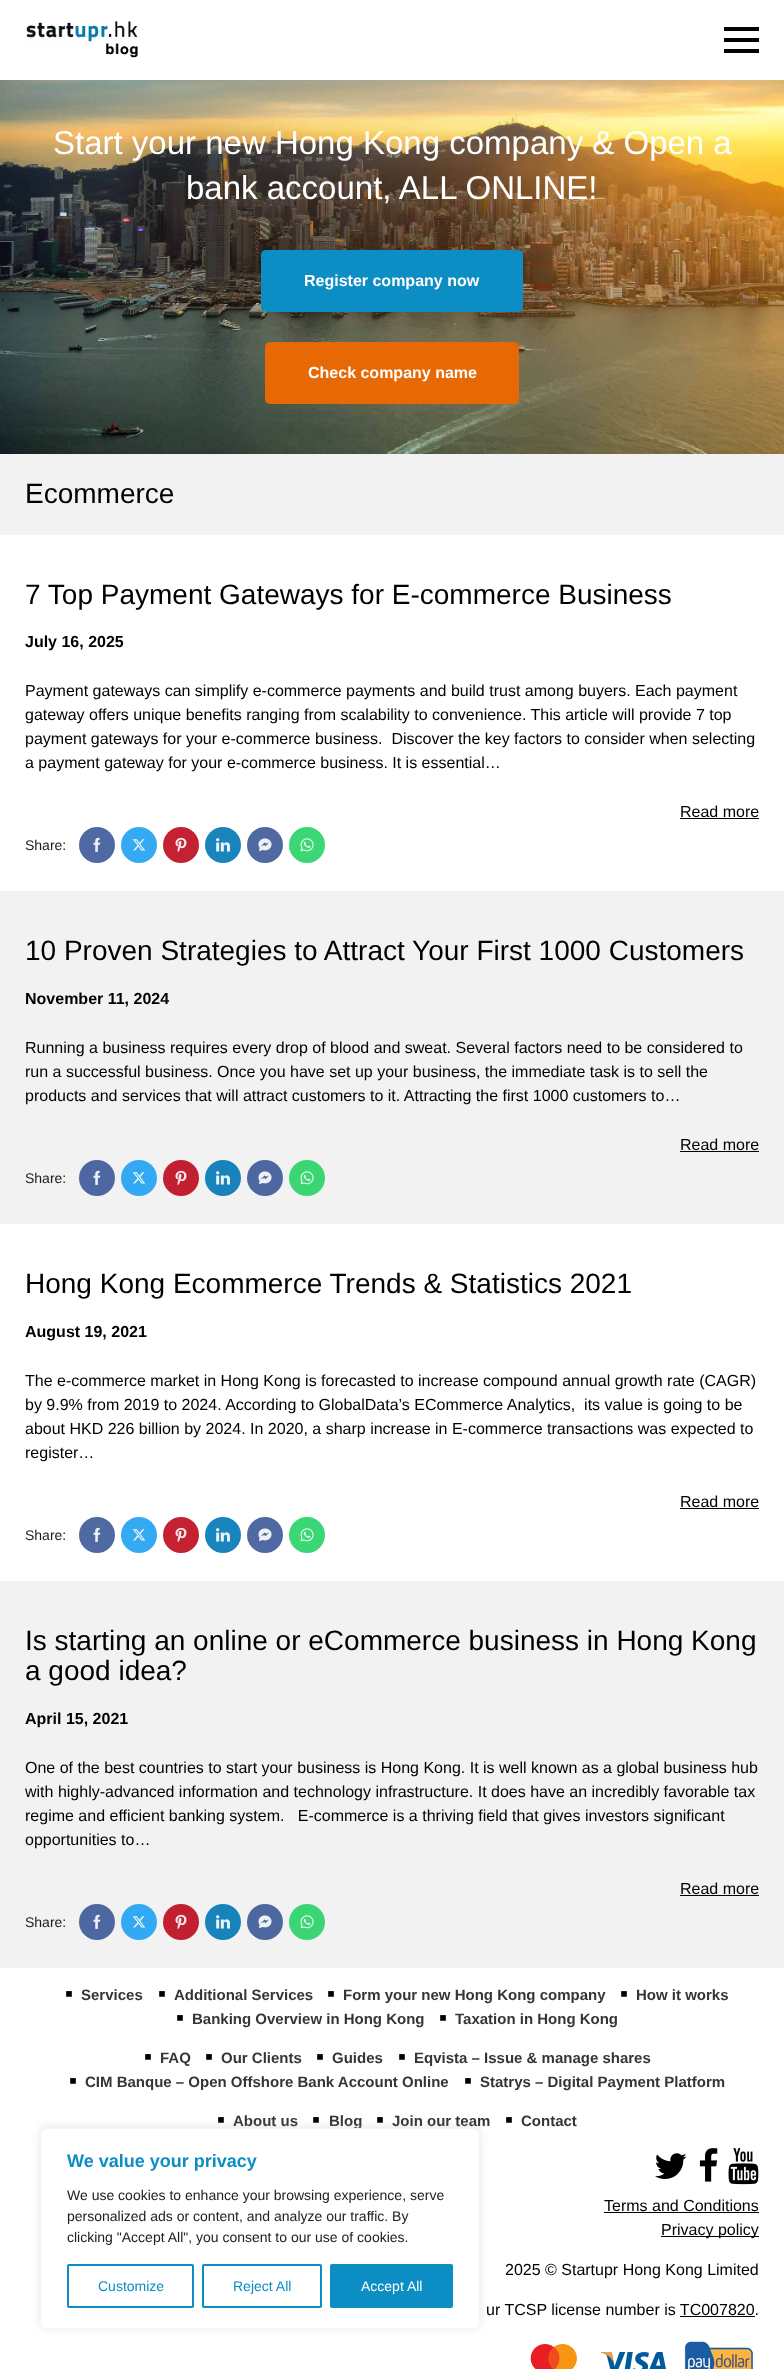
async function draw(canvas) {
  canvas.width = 784;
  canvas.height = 2369;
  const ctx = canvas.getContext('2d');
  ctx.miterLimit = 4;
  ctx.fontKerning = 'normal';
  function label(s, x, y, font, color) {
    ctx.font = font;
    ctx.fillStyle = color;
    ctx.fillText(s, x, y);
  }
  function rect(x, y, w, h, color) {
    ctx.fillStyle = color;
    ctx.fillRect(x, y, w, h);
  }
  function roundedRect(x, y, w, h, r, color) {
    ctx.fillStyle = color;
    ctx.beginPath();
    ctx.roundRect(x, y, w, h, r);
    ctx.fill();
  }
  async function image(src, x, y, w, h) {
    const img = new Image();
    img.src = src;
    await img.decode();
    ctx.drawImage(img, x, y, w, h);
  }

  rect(0, 0, 784, 2369, '#f2f2f2');
  rect(0, 0, 784, 80, '#fff');
  await image('assets/img1.png', 26, 21, 112, 37);
  rect(724, 27, 35, 4, '#000');
  rect(724, 38, 35, 4, '#000');
  rect(724, 49, 35, 4, '#000');
  await image('assets/img2.png', 0, 80, 784, 374);
  label('Start your new Hong Kong company & Open a', 53, 154, '33px Liberation Sans', '#fff');
  label('bank account, ALL ONLINE!', 186, 199, '33px Liberation Sans', '#fff');
  roundedRect(261, 250, 262, 62, 5, '#0c8dc4');
  label('Register company now', 304, 286, 'bold 16px Liberation Sans', '#fff');
  roundedRect(265, 342, 254, 62, 5, '#e66905');
  label('Check company name', 308, 378, 'bold 16px Liberation Sans', '#fff');
  label('Ecommerce', 25, 503, '28px Liberation Sans', '#000');
  rect(0, 535, 784, 356, '#fff');
  label('7 Top Payment Gateways for E-commerce Business', 25, 604, '28px Liberation Sans', '#000');
  label('July 16, 2025', 25, 647, 'bold 16px Liberation Sans', '#000');
  label('Payment gateways can simplify e-commerce payments and build trust among buyers. Each payment', 25, 696, '16px Liberation Sans', '#000');
  label('gateway offers unique benefits ranging from scalability to convenience. This article will provide 7 top', 25, 720, '16px Liberation Sans', '#000');
  label('payment gateways for your e-commerce business.  Discover the key factors to consider when selecting', 25, 744, '16px Liberation Sans', '#000');
  label('a payment gateway for your e-commerce business. It is essential…', 25, 768, '16px Liberation Sans', '#000');
  label('Read more', 680, 817, '16px Liberation Sans', '#000');
  rect(680, 818, 79, 1, '#000');
  label('Share:', 25, 850, '14px Liberation Sans', '#1a1a1a');
  ctx.fillStyle = '#4f6aa2';
  ctx.beginPath();
  ctx.arc(97, 845, 18, 0, 2 * Math.PI);
  ctx.fill();
  await image('assets/img3.png', 93, 837, 8, 15);
  ctx.fillStyle = '#34aaf3';
  ctx.beginPath();
  ctx.arc(139, 845, 18, 0, 2 * Math.PI);
  ctx.fill();
  await image('assets/img4.png', 132, 839, 14, 12);
  ctx.fillStyle = '#c42133';
  ctx.beginPath();
  ctx.arc(181, 845, 18, 0, 2 * Math.PI);
  ctx.fill();
  await image('assets/img5.png', 175, 837, 12, 15);
  ctx.fillStyle = '#1a85bc';
  ctx.beginPath();
  ctx.arc(223, 845, 18, 0, 2 * Math.PI);
  ctx.fill();
  await image('assets/img6.png', 216, 838, 14, 14);
  ctx.fillStyle = '#4f6aa2';
  ctx.beginPath();
  ctx.arc(265, 845, 18, 0, 2 * Math.PI);
  ctx.fill();
  await image('assets/img7.png', 258, 838, 14, 14);
  ctx.fillStyle = '#3bd775';
  ctx.beginPath();
  ctx.arc(307, 845, 18, 0, 2 * Math.PI);
  ctx.fill();
  await image('assets/img8.png', 300, 838, 14, 14);
  label('10 Proven Strategies to Attract Your First 1000 Customers', 25, 960, '28px Liberation Sans', '#000');
  label('November 11, 2024', 25, 1004, 'bold 16px Liberation Sans', '#000');
  label('Running a business requires every drop of blood and sweat. Several factors need to be considered to', 25, 1053, '16px Liberation Sans', '#000');
  label('run a successful business. Once you have set up your business, the immediate task is to sell the', 25, 1077, '16px Liberation Sans', '#000');
  label('products and services that will attract customers to it. Attracting the first 1000 customers to…', 25, 1101, '16px Liberation Sans', '#000');
  label('Read more', 680, 1150, '16px Liberation Sans', '#000');
  rect(680, 1151, 79, 1, '#000');
  label('Share:', 25, 1183, '14px Liberation Sans', '#1a1a1a');
  ctx.fillStyle = '#4d68a1';
  ctx.beginPath();
  ctx.arc(97, 1178, 18, 0, 2 * Math.PI);
  ctx.fill();
  await image('assets/img9.png', 93, 1170, 8, 15);
  ctx.fillStyle = '#32a9f2';
  ctx.beginPath();
  ctx.arc(139, 1178, 18, 0, 2 * Math.PI);
  ctx.fill();
  await image('assets/img10.png', 132, 1172, 14, 12);
  ctx.fillStyle = '#c21f31';
  ctx.beginPath();
  ctx.arc(181, 1178, 18, 0, 2 * Math.PI);
  ctx.fill();
  await image('assets/img11.png', 175, 1170, 12, 15);
  ctx.fillStyle = '#1883bb';
  ctx.beginPath();
  ctx.arc(223, 1178, 18, 0, 2 * Math.PI);
  ctx.fill();
  await image('assets/img12.png', 216, 1171, 14, 14);
  ctx.fillStyle = '#4d68a1';
  ctx.beginPath();
  ctx.arc(265, 1178, 18, 0, 2 * Math.PI);
  ctx.fill();
  await image('assets/img13.png', 258, 1171, 14, 14);
  ctx.fillStyle = '#3ad674';
  ctx.beginPath();
  ctx.arc(307, 1178, 18, 0, 2 * Math.PI);
  ctx.fill();
  await image('assets/img14.png', 300, 1171, 14, 14);
  rect(0, 1224, 784, 357, '#fff');
  label('Hong Kong Ecommerce Trends & Statistics 2021', 25, 1293, '28px Liberation Sans', '#000');
  label('August 19, 2021', 25, 1337, 'bold 16px Liberation Sans', '#000');
  label('The e-commerce market in Hong Kong is forecasted to increase compound annual growth rate (CAGR)', 25, 1386, '16px Liberation Sans', '#000');
  label('by 9.9% from 2019 to 2024. According to GlobalData’s ECommerce Analytics,  its value is going to be', 25, 1410, '16px Liberation Sans', '#000');
  label('about HKD 226 billion by 2024. In 2020, a sharp increase in E-commerce transactions was expected to', 25, 1434, '16px Liberation Sans', '#000');
  label('register…', 25, 1458, '16px Liberation Sans', '#000');
  label('Read more', 680, 1507, '16px Liberation Sans', '#000');
  rect(680, 1508, 79, 1, '#000');
  label('Share:', 25, 1540, '14px Liberation Sans', '#1a1a1a');
  ctx.fillStyle = '#4f6aa2';
  ctx.beginPath();
  ctx.arc(97, 1535, 18, 0, 2 * Math.PI);
  ctx.fill();
  await image('assets/img3.png', 93, 1527, 8, 15);
  ctx.fillStyle = '#34aaf3';
  ctx.beginPath();
  ctx.arc(139, 1535, 18, 0, 2 * Math.PI);
  ctx.fill();
  await image('assets/img4.png', 132, 1529, 14, 12);
  ctx.fillStyle = '#c42133';
  ctx.beginPath();
  ctx.arc(181, 1535, 18, 0, 2 * Math.PI);
  ctx.fill();
  await image('assets/img5.png', 175, 1527, 12, 15);
  ctx.fillStyle = '#1a85bc';
  ctx.beginPath();
  ctx.arc(223, 1535, 18, 0, 2 * Math.PI);
  ctx.fill();
  await image('assets/img6.png', 216, 1528, 14, 14);
  ctx.fillStyle = '#4f6aa2';
  ctx.beginPath();
  ctx.arc(265, 1535, 18, 0, 2 * Math.PI);
  ctx.fill();
  await image('assets/img7.png', 258, 1528, 14, 14);
  ctx.fillStyle = '#3bd775';
  ctx.beginPath();
  ctx.arc(307, 1535, 18, 0, 2 * Math.PI);
  ctx.fill();
  await image('assets/img8.png', 300, 1528, 14, 14);
  label('Is starting an online or eCommerce business in Hong Kong', 25, 1650, '28px Liberation Sans', '#000');
  label('a good idea?', 25, 1680, '28px Liberation Sans', '#000');
  label('April 15, 2021', 25, 1724, 'bold 16px Liberation Sans', '#000');
  label('One of the best countries to start your business is Hong Kong. It is well known as a global business hub', 25, 1773, '16px Liberation Sans', '#000');
  label('with highly-advanced information and technology infrastructure. It does have an incredibly favorable tax', 25, 1797, '16px Liberation Sans', '#000');
  label('regime and efficient banking system.   E-commerce is a thriving field that gives investors significant', 25, 1821, '16px Liberation Sans', '#000');
  label('opportunities to…', 25, 1845, '16px Liberation Sans', '#000');
  label('Read more', 680, 1894, '16px Liberation Sans', '#000');
  rect(680, 1895, 79, 1, '#000');
  label('Share:', 25, 1927, '14px Liberation Sans', '#1a1a1a');
  ctx.fillStyle = '#4d68a1';
  ctx.beginPath();
  ctx.arc(97, 1922, 18, 0, 2 * Math.PI);
  ctx.fill();
  await image('assets/img9.png', 93, 1914, 8, 15);
  ctx.fillStyle = '#32a9f2';
  ctx.beginPath();
  ctx.arc(139, 1922, 18, 0, 2 * Math.PI);
  ctx.fill();
  await image('assets/img10.png', 132, 1916, 14, 12);
  ctx.fillStyle = '#c21f31';
  ctx.beginPath();
  ctx.arc(181, 1922, 18, 0, 2 * Math.PI);
  ctx.fill();
  await image('assets/img11.png', 175, 1914, 12, 15);
  ctx.fillStyle = '#1883bb';
  ctx.beginPath();
  ctx.arc(223, 1922, 18, 0, 2 * Math.PI);
  ctx.fill();
  await image('assets/img12.png', 216, 1915, 14, 14);
  ctx.fillStyle = '#4d68a1';
  ctx.beginPath();
  ctx.arc(265, 1922, 18, 0, 2 * Math.PI);
  ctx.fill();
  await image('assets/img13.png', 258, 1915, 14, 14);
  ctx.fillStyle = '#3ad674';
  ctx.beginPath();
  ctx.arc(307, 1922, 18, 0, 2 * Math.PI);
  ctx.fill();
  await image('assets/img14.png', 300, 1915, 14, 14);
  rect(0, 1968, 784, 401, '#fff');
  label('￭', 65, 2000, '16px Chiron Hei HK', '#000');
  label('Services', 81, 2000, 'bold 15px Liberation Sans', '#353535');
  label('￭', 158, 2000, '16px Chiron Hei HK', '#000');
  label('Additional Services', 174, 2000, 'bold 15px Liberation Sans', '#353535');
  label('￭', 327, 2000, '16px Chiron Hei HK', '#000');
  label('Form your new Hong Kong company', 343, 2000, 'bold 15px Liberation Sans', '#353535');
  label('￭', 620, 2000, '16px Chiron Hei HK', '#000');
  label('How it works', 636, 2000, 'bold 15px Liberation Sans', '#353535');
  label('￭', 176, 2024, '16px Chiron Hei HK', '#000');
  label('Banking Overview in Hong Kong', 192, 2024, 'bold 15px Liberation Sans', '#353535');
  label('￭', 439, 2024, '16px Chiron Hei HK', '#000');
  label('Taxation in Hong Kong', 455, 2024, 'bold 15px Liberation Sans', '#353535');
  label('￭', 144, 2063, '16px Chiron Hei HK', '#000');
  label('FAQ', 160, 2063, 'bold 15px Liberation Sans', '#353535');
  label('￭', 205, 2063, '16px Chiron Hei HK', '#000');
  label('Our Clients', 221, 2063, 'bold 15px Liberation Sans', '#353535');
  label('￭', 316, 2063, '16px Chiron Hei HK', '#000');
  label('Guides', 332, 2063, 'bold 15px Liberation Sans', '#353535');
  label('￭', 398, 2063, '16px Chiron Hei HK', '#000');
  label('Eqvista – Issue & manage shares', 414, 2063, 'bold 15px Liberation Sans', '#353535');
  label('￭', 69, 2087, '16px Chiron Hei HK', '#000');
  label('CIM Banque – Open Offshore Bank Account Online', 85, 2087, 'bold 15px Liberation Sans', '#353535');
  label('￭', 464, 2087, '16px Chiron Hei HK', '#000');
  label('Statrys – Digital Payment Platform', 480, 2087, 'bold 15px Liberation Sans', '#353535');
  label('￭', 217, 2126, '16px Chiron Hei HK', '#000');
  label('About us', 233, 2126, 'bold 15px Liberation Sans', '#353535');
  label('￭', 312, 2126, '16px Chiron Hei HK', '#000');
  label('Blog', 329, 2126, 'bold 15px Liberation Sans', '#353535');
  label('￭', 376, 2126, '16px Chiron Hei HK', '#000');
  label('Join our team', 392, 2126, 'bold 15px Liberation Sans', '#353535');
  label('￭', 505, 2126, '16px Chiron Hei HK', '#000');
  label('Contact', 521, 2126, 'bold 15px Liberation Sans', '#353535');
  await image('assets/img15.png', 655, 2153, 32, 26);
  await image('assets/img16.png', 699, 2148, 19, 34);
  await image('assets/img17.png', 728, 2148, 31, 37);
  label('Terms and Conditions', 604, 2211, '16px Liberation Sans', '#000');
  rect(604, 2212, 155, 1, '#000');
  rect(661, 2236, 98, 1, '#000');
  label('Privacy policy', 661, 2235, '16px Liberation Sans', '#000');
  label('2025 © Startupr Hong Kong Limited', 505, 2275, '16px Liberation Sans', '#000');
  label('ur TCSP license number is TC007820.', 486, 2315, '16px Liberation Sans', '#000');
  rect(680, 2316, 75, 1, '#000');
  await image('assets/img18.png', 530, 2344, 47, 25);
  await image('assets/img19.png', 601, 2352, 65, 17);
  await image('assets/img20.png', 684, 2341, 69, 28);
  ctx.fillStyle = '#acabab4d';
  ctx.filter = 'blur(5px)';
  ctx.beginPath();
  ctx.roundRect(40, 2127, 440, 201, 6);
  ctx.fill();
  ctx.filter = 'none';
  ctx.fillStyle = '#fff';
  ctx.beginPath();
  ctx.roundRect(40.5, 2128.5, 439, 200, 5.5);
  ctx.fill();
  ctx.strokeStyle = '#f4f4f4';
  ctx.stroke();
  label('We value your privacy', 67, 2167, 'bold 18px Liberation Sans', '#0c8dc4');
  label('We use cookies to enhance your browsing experience, serve', 67, 2200, '14px Liberation Sans', '#212121');
  label('personalized ads or content, and analyze our traffic. By', 67, 2221, '14px Liberation Sans', '#212121');
  label('clicking "Accept All", you consent to our use of cookies.', 67, 2242, '14px Liberation Sans', '#212121');
  ctx.beginPath();
  ctx.roundRect(68, 2265, 125, 42, 1);
  ctx.strokeStyle = '#0c8dc4';
  ctx.lineWidth = 2;
  ctx.stroke();
  label('Customize', 98, 2291, '14px Liberation Sans', '#0c8dc4');
  ctx.beginPath();
  ctx.roundRect(203, 2265, 118, 42, 1);
  ctx.stroke();
  label('Reject All', 233, 2291, '14px Liberation Sans', '#0c8dc4');
  ctx.beginPath();
  ctx.roundRect(331, 2265, 121, 42, 1);
  ctx.fill();
  ctx.stroke();
  label('Accept All', 361, 2291, '14px Liberation Sans', '#fff');
}

draw(document.querySelector('canvas'));
